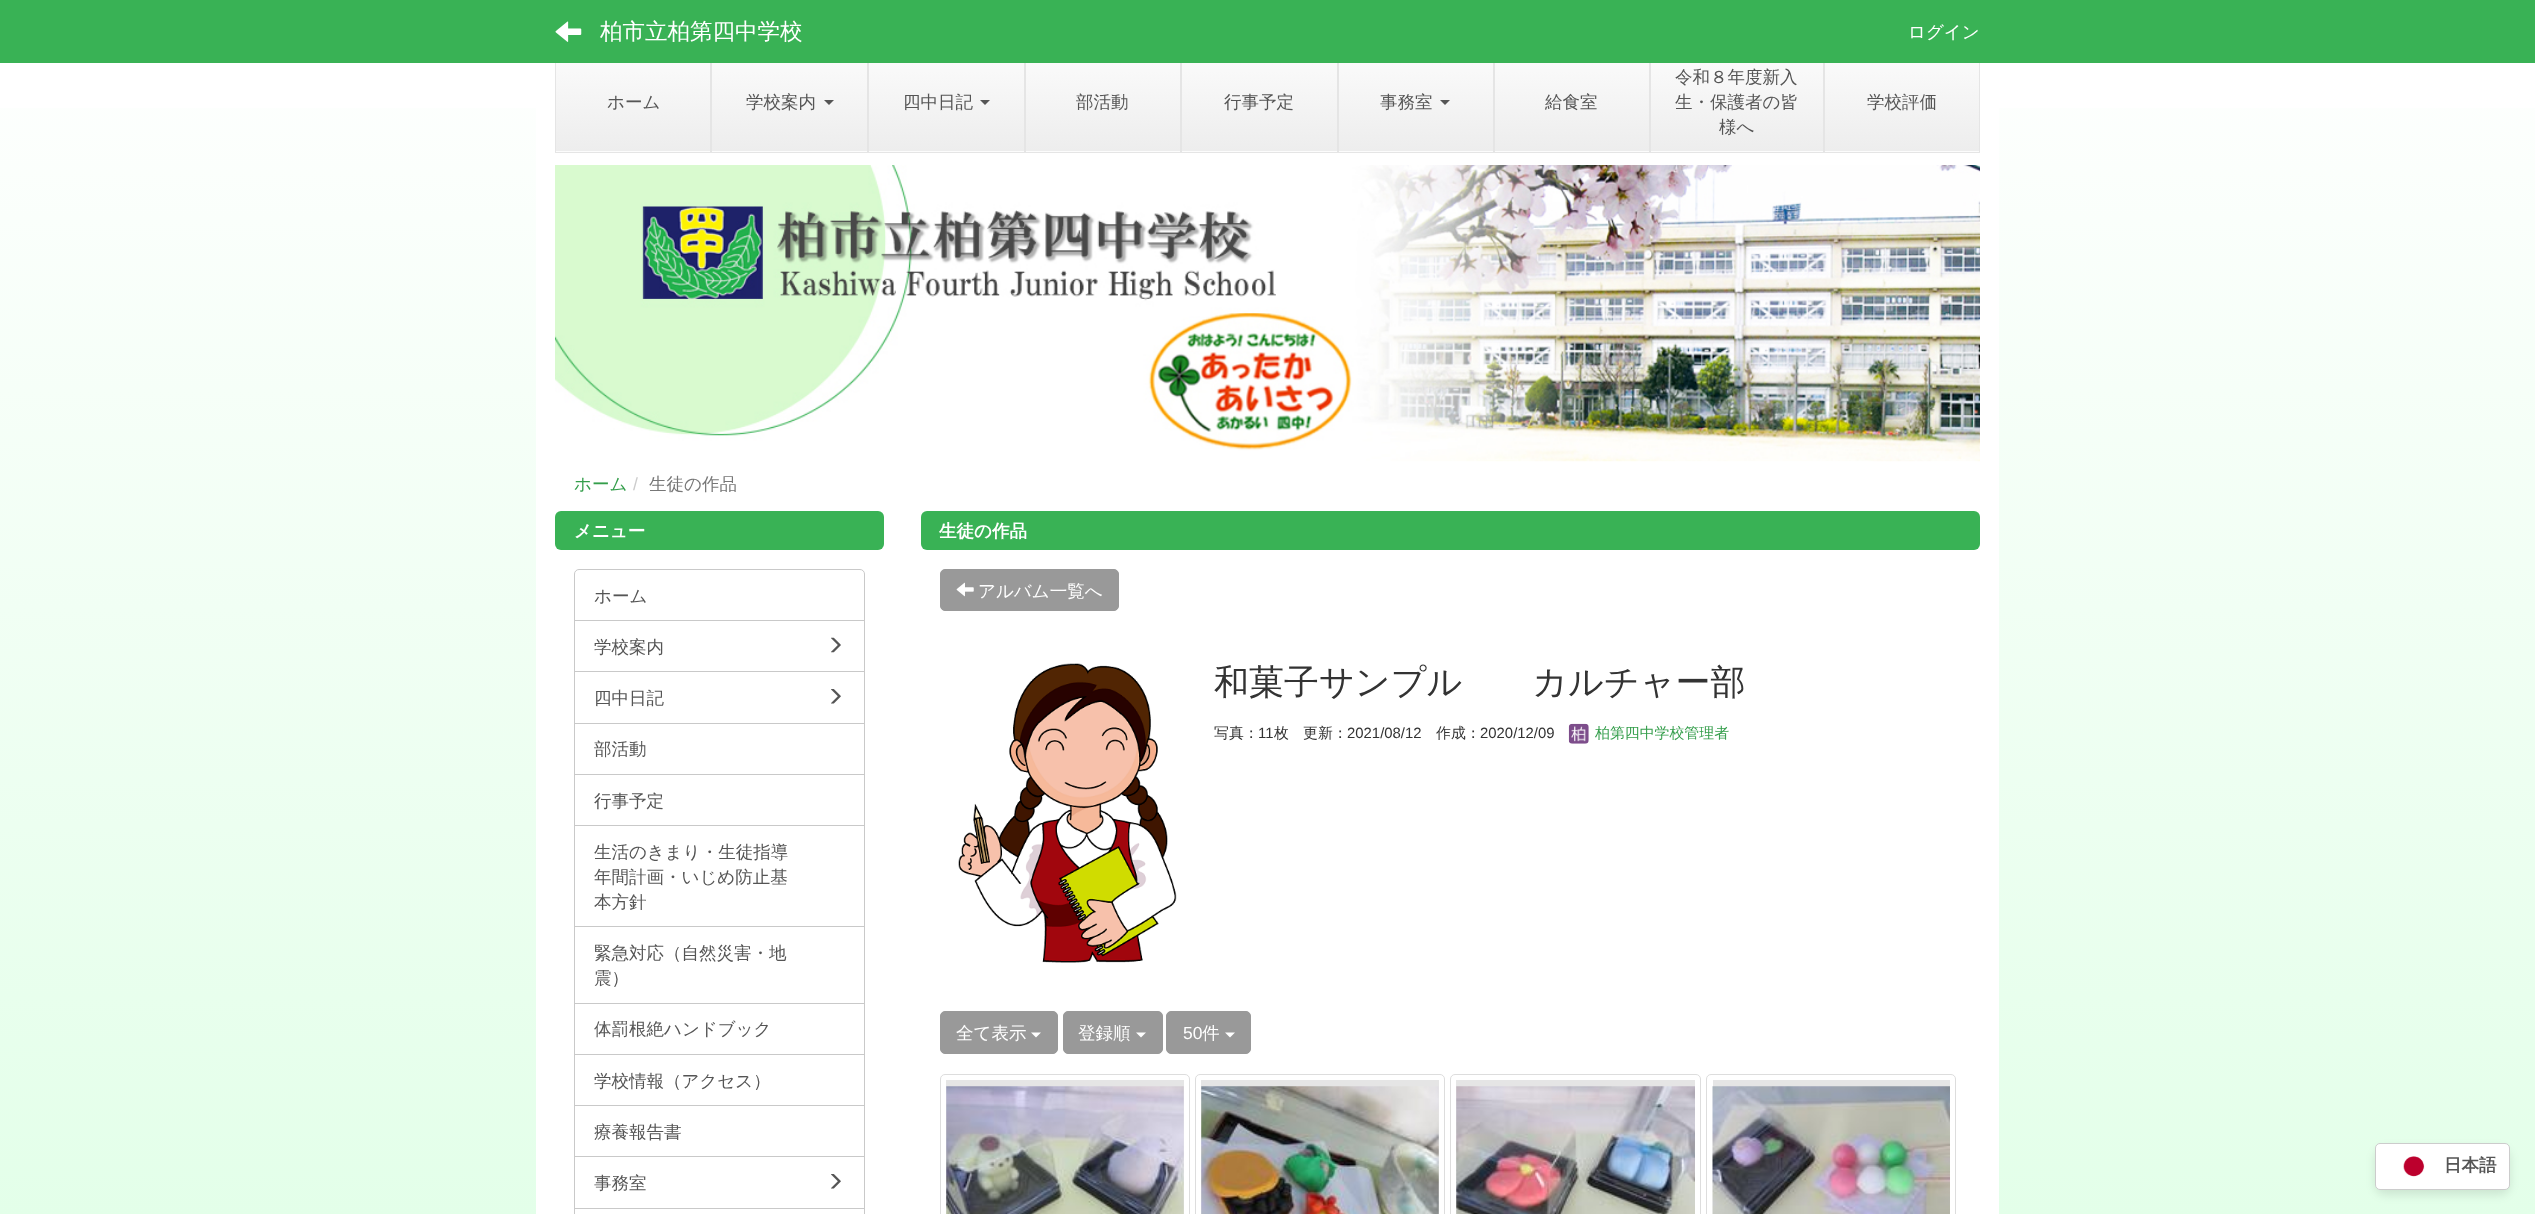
async function draw(canvas) {
  canvas.width = 2535;
  canvas.height = 1214;
  const ctx = canvas.getContext('2d');
  ctx.miterLimit = 4;
  ctx.fontKerning = 'normal';
  function label(s, x, y, font, color) {
    ctx.font = font;
    ctx.fillStyle = color;
    ctx.fillText(s, x, y);
  }
  function rect(x, y, w, h, color) {
    ctx.fillStyle = color;
    ctx.fillRect(x, y, w, h);
  }
  function roundedRect(x, y, w, h, r, color) {
    ctx.fillStyle = color;
    ctx.beginPath();
    ctx.roundRect(x, y, w, h, r);
    ctx.fill();
  }
  async function image(src, x, y, w, h) {
    const img = new Image();
    img.src = src;
    await img.decode();
    ctx.drawImage(img, x, y, w, h);
  }
  let gradient, path;

  rect(0, 0, 2535, 1214, '#fff');
  gradient = ctx.createLinearGradient(1268, 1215, 1268, 0);
  gradient.addColorStop(0, '#e3ffe9');
  gradient.addColorStop(1, '#fff');
  ctx.fillStyle = gradient;
  ctx.fillRect(0, 108, 2535, 1106);
  rect(536, 108, 1463, 1106, '#fff');
  gradient = ctx.createLinearGradient(633, 51, 633, 151);
  gradient.addColorStop(0, '#fcfcfc');
  gradient.addColorStop(1, '#ededed');
  ctx.fillStyle = gradient;
  ctx.fillRect(556, 63, 154, 88);
  gradient = ctx.createLinearGradient(633, 151, 633, 251);
  gradient.addColorStop(0, '#fcfcfc');
  gradient.addColorStop(1, '#ededed');
  ctx.fillStyle = gradient;
  ctx.fillRect(555, 151, 156, 1);
  ctx.strokeStyle = '#e5e5e5';
  ctx.strokeRect(555.5, 50.5, 155, 102);
  gradient = ctx.createLinearGradient(789, 51, 789, 151);
  gradient.addColorStop(0, '#fcfcfc');
  gradient.addColorStop(1, '#ededed');
  ctx.fillStyle = gradient;
  ctx.fillRect(712, 63, 155, 88);
  gradient = ctx.createLinearGradient(789, 151, 789, 251);
  gradient.addColorStop(0, '#fcfcfc');
  gradient.addColorStop(1, '#ededed');
  ctx.fillStyle = gradient;
  ctx.fillRect(711, 151, 157, 1);
  ctx.strokeRect(711.5, 50.5, 156, 102);
  gradient = ctx.createLinearGradient(946, 51, 946, 151);
  gradient.addColorStop(0, '#fcfcfc');
  gradient.addColorStop(1, '#ededed');
  ctx.fillStyle = gradient;
  ctx.fillRect(869, 63, 155, 88);
  gradient = ctx.createLinearGradient(946, 151, 946, 251);
  gradient.addColorStop(0, '#fcfcfc');
  gradient.addColorStop(1, '#ededed');
  ctx.fillStyle = gradient;
  ctx.fillRect(868, 151, 157, 1);
  ctx.strokeRect(868.5, 50.5, 156, 102);
  gradient = ctx.createLinearGradient(1103, 51, 1103, 151);
  gradient.addColorStop(0, '#fcfcfc');
  gradient.addColorStop(1, '#ededed');
  ctx.fillStyle = gradient;
  ctx.fillRect(1026, 63, 154, 88);
  gradient = ctx.createLinearGradient(1103, 151, 1103, 251);
  gradient.addColorStop(0, '#fcfcfc');
  gradient.addColorStop(1, '#ededed');
  ctx.fillStyle = gradient;
  ctx.fillRect(1025, 151, 156, 1);
  ctx.strokeRect(1025.5, 50.5, 155, 102);
  gradient = ctx.createLinearGradient(1259, 51, 1259, 151);
  gradient.addColorStop(0, '#fcfcfc');
  gradient.addColorStop(1, '#ededed');
  ctx.fillStyle = gradient;
  ctx.fillRect(1182, 63, 155, 88);
  gradient = ctx.createLinearGradient(1259, 151, 1259, 251);
  gradient.addColorStop(0, '#fcfcfc');
  gradient.addColorStop(1, '#ededed');
  ctx.fillStyle = gradient;
  ctx.fillRect(1181, 151, 157, 1);
  ctx.strokeRect(1181.5, 50.5, 156, 102);
  gradient = ctx.createLinearGradient(1416, 51, 1416, 151);
  gradient.addColorStop(0, '#fcfcfc');
  gradient.addColorStop(1, '#ededed');
  ctx.fillStyle = gradient;
  ctx.fillRect(1339, 63, 154, 88);
  gradient = ctx.createLinearGradient(1416, 151, 1416, 251);
  gradient.addColorStop(0, '#fcfcfc');
  gradient.addColorStop(1, '#ededed');
  ctx.fillStyle = gradient;
  ctx.fillRect(1338, 151, 156, 1);
  ctx.strokeRect(1338.5, 50.5, 155, 102);
  gradient = ctx.createLinearGradient(1572, 51, 1572, 151);
  gradient.addColorStop(0, '#fcfcfc');
  gradient.addColorStop(1, '#ededed');
  ctx.fillStyle = gradient;
  ctx.fillRect(1495, 63, 154, 88);
  gradient = ctx.createLinearGradient(1572, 151, 1572, 251);
  gradient.addColorStop(0, '#fcfcfc');
  gradient.addColorStop(1, '#ededed');
  ctx.fillStyle = gradient;
  ctx.fillRect(1494, 151, 156, 1);
  ctx.strokeRect(1494.5, 50.5, 155, 102);
  gradient = ctx.createLinearGradient(1737, 51, 1737, 151);
  gradient.addColorStop(0, '#fcfcfc');
  gradient.addColorStop(1, '#ededed');
  ctx.fillStyle = gradient;
  ctx.fillRect(1651, 63, 172, 88);
  gradient = ctx.createLinearGradient(1737, 151, 1737, 251);
  gradient.addColorStop(0, '#fcfcfc');
  gradient.addColorStop(1, '#ededed');
  ctx.fillStyle = gradient;
  ctx.fillRect(1650, 151, 174, 1);
  ctx.strokeRect(1650.5, 50.5, 173, 102);
  gradient = ctx.createLinearGradient(1902, 51, 1902, 151);
  gradient.addColorStop(0, '#fcfcfc');
  gradient.addColorStop(1, '#ededed');
  ctx.fillStyle = gradient;
  ctx.fillRect(1825, 63, 154, 88);
  gradient = ctx.createLinearGradient(1902, 151, 1902, 251);
  gradient.addColorStop(0, '#fcfcfc');
  gradient.addColorStop(1, '#ededed');
  ctx.fillStyle = gradient;
  ctx.fillRect(1824, 151, 156, 1);
  ctx.strokeRect(1824.5, 50.5, 155, 102);
  rect(0, 0, 2535, 63, '#39b255');
  await image('assets/img1.png', 555, 21, 27, 21);
  label('柏市立柏第四中学校', 600, 39, '500 22.5px WenQuanYi Zen Hei', '#fff');
  label('ログイン', 1908, 38, '500 17.5px WenQuanYi Zen Hei', '#fff');
  label('ホーム', 607, 108, '500 17.5px WenQuanYi Zen Hei', '#555');
  label('学校案内', 746, 108, '500 17.5px WenQuanYi Zen Hei', '#555');
  path = new Path2D('M824 100H834L829 105Z');
  ctx.fill(path);
  label('四中日記', 903, 108, '500 17.5px WenQuanYi Zen Hei', '#555');
  path = new Path2D('M980 100H990L985 105Z');
  ctx.fill(path);
  label('部活動', 1076, 108, '500 17.5px WenQuanYi Zen Hei', '#555');
  label('行事予定', 1224, 108, '500 17.5px WenQuanYi Zen Hei', '#555');
  label('事務室', 1380, 108, '500 17.5px WenQuanYi Zen Hei', '#555');
  path = new Path2D('M1440 100H1450L1445 105Z');
  ctx.fill(path);
  label('給食室', 1545, 108, '500 17.5px WenQuanYi Zen Hei', '#555');
  label('令和８年度新入', 1675, 83, '500 17.5px WenQuanYi Zen Hei', '#555');
  label('生・保護者の皆', 1675, 108, '500 17.5px WenQuanYi Zen Hei', '#555');
  label('様へ', 1719, 133, '500 17.5px WenQuanYi Zen Hei', '#555');
  label('学校評価', 1867, 108, '500 17.5px WenQuanYi Zen Hei', '#555');
  await image('assets/img2.png', 555, 165, 1425, 297);
  label('ホーム', 574, 490, '500 17.5px WenQuanYi Zen Hei', '#349e4b');
  label('/', 633, 490, '17.5px Liberation Sans', '#ccc');
  label('生徒の作品', 649, 490, '500 17.5px WenQuanYi Zen Hei', '#777');
  roundedRect(555, 511, 329, 39, 6, '#39b255');
  label('メニュー', 574, 537, 'bold 17.5px WenQuanYi Zen Hei', '#fff');
  ctx.beginPath();
  ctx.roundRect(574.5, 569.5, 290, 51, [4.5, 4.5, 0, 0]);
  ctx.strokeStyle = '#c9c9c9';
  ctx.stroke();
  label('ホーム', 594, 602, '500 17.5px WenQuanYi Zen Hei', '#555');
  ctx.strokeRect(574.5, 620.5, 290, 52);
  label('学校案内', 594, 653, '500 17.5px WenQuanYi Zen Hei', '#555');
  await image('assets/img3.png', 831, 637, 10, 16);
  rect(575, 672, 289, 1, '#fff');
  ctx.strokeRect(574.5, 671.5, 290, 52);
  label('四中日記', 594, 704, '500 17.5px WenQuanYi Zen Hei', '#555');
  await image('assets/img4.png', 831, 689, 10, 15);
  ctx.strokeRect(574.5, 723.5, 290, 51);
  label('部活動', 594, 755, '500 17.5px WenQuanYi Zen Hei', '#555');
  ctx.strokeRect(574.5, 774.5, 290, 51);
  label('行事予定', 594, 807, '500 17.5px WenQuanYi Zen Hei', '#555');
  ctx.strokeRect(574.5, 825.5, 290, 102);
  label('生活のきまり・生徒指導', 594, 858, '500 17.5px WenQuanYi Zen Hei', '#555');
  label('年間計画・いじめ防止基', 594, 883, '500 17.5px WenQuanYi Zen Hei', '#555');
  label('本方針', 594, 908, '500 17.5px WenQuanYi Zen Hei', '#555');
  rect(575, 927, 289, 1, '#fff');
  ctx.strokeRect(574.5, 926.5, 290, 77);
  label('緊急対応（自然災害・地', 594, 959, '500 17.5px WenQuanYi Zen Hei', '#555');
  label('震）', 594, 984, '500 17.5px WenQuanYi Zen Hei', '#555');
  ctx.strokeRect(574.5, 1003.5, 290, 51);
  label('体罰根絶ハンドブック', 594, 1035, '500 17.5px WenQuanYi Zen Hei', '#555');
  ctx.strokeRect(574.5, 1054.5, 290, 51);
  label('学校情報（アクセス）', 594, 1087, '500 17.5px WenQuanYi Zen Hei', '#555');
  ctx.strokeRect(574.5, 1105.5, 290, 52);
  label('療養報告書', 594, 1138, '500 17.5px WenQuanYi Zen Hei', '#555');
  rect(575, 1157, 289, 1, '#fff');
  ctx.strokeRect(574.5, 1156.5, 290, 52);
  label('事務室', 594, 1189, '500 17.5px WenQuanYi Zen Hei', '#555');
  await image('assets/img4.png', 831, 1174, 10, 15);
  ctx.strokeRect(574.5, 1208.5, 290, 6);
  roundedRect(921, 511, 1059, 39, 6, '#39b255');
  label('生徒の作品', 939, 537, 'bold 17.5px WenQuanYi Zen Hei', '#fff');
  ctx.fillStyle = '#999';
  ctx.beginPath();
  ctx.roundRect(940.5, 569.5, 178, 41, 4.5);
  ctx.fill();
  ctx.strokeStyle = '#999';
  ctx.stroke();
  await image('assets/img5.png', 956, 582, 18, 15);
  label('アルバム一覧へ', 978, 597, '500 17.5px WenQuanYi Zen Hei', '#fff');
  await image('assets/img6.png', 958, 663, 219, 300);
  label('和菓子サンプル　　カルチャー部', 1214, 694, '500 35px WenQuanYi Zen Hei', '#333');
  label('写真：', 1214, 738, '500 14.9px WenQuanYi Zen Hei', '#333');
  label('11', 1258, 738, '14.9px Liberation Sans', '#333');
  label('枚', 1274, 738, '500 14.9px WenQuanYi Zen Hei', '#333');
  label('更新：', 1303, 738, '500 14.9px WenQuanYi Zen Hei', '#333');
  label('2021/08/12', 1347, 738, '14.9px Liberation Sans', '#333');
  label('作成：', 1436, 738, '500 14.9px WenQuanYi Zen Hei', '#333');
  label('2020/12/09', 1480, 738, '14.9px Liberation Sans', '#333');
  await image('assets/img7.png', 1568, 723, 21, 21);
  label('柏第四中学校管理者', 1595, 738, '500 14.9px WenQuanYi Zen Hei', '#349e4b');
  ctx.fillStyle = '#999';
  ctx.beginPath();
  ctx.roundRect(940.5, 1011.5, 117, 42, 4.5);
  ctx.fill();
  ctx.stroke();
  label('全て表示', 956, 1039, '500 17.5px WenQuanYi Zen Hei', '#fff');
  path = new Path2D('M1031 1032.5H1041L1036 1037.5Z');
  ctx.fill(path);
  ctx.fillStyle = '#999';
  ctx.beginPath();
  ctx.roundRect(1063.5, 1011.5, 99, 42, 4.5);
  ctx.fill();
  ctx.stroke();
  label('登録順', 1078, 1039, '500 17.5px WenQuanYi Zen Hei', '#fff');
  path = new Path2D('M1136 1032.5H1146L1141 1037.5Z');
  ctx.fill(path);
  ctx.fillStyle = '#999';
  ctx.beginPath();
  ctx.roundRect(1166.5, 1011.5, 84, 42, 4.5);
  ctx.fill();
  ctx.stroke();
  label('50', 1183, 1039, '17.5px Liberation Sans', '#fff');
  label('件', 1202, 1039, '500 17.5px WenQuanYi Zen Hei', '#fff');
  path = new Path2D('M1225 1032.5H1235L1230 1037.5Z');
  ctx.fill(path);
  ctx.beginPath();
  ctx.roundRect(940.5, 1074.5, 249, 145, 4.5);
  ctx.strokeStyle = '#ddd';
  ctx.stroke();
  rect(946, 1080, 238, 134, '#e5e5e5');
  await image('assets/img8.png', 946, 1086, 238, 128);
  ctx.beginPath();
  ctx.roundRect(1195.5, 1074.5, 249, 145, 4.5);
  ctx.stroke();
  rect(1201, 1080, 238, 134, '#e5e5e5');
  await image('assets/img9.png', 1201, 1086, 238, 128);
  ctx.beginPath();
  ctx.roundRect(1450.5, 1074.5, 250, 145, 4.5);
  ctx.stroke();
  rect(1456, 1080, 239, 134, '#e5e5e5');
  await image('assets/img10.png', 1456, 1086, 239, 128);
  ctx.beginPath();
  ctx.roundRect(1706.5, 1074.5, 249, 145, 4.5);
  ctx.stroke();
  rect(1713, 1080, 237, 7, '#e5e5e5');
  await image('assets/img11.png', 1712, 1086, 238, 128);
  ctx.fillStyle = '#0000001a';
  ctx.filter = 'blur(5px)';
  ctx.beginPath();
  ctx.roundRect(2375, 1148, 135, 47, 10);
  ctx.fill();
  ctx.filter = 'none';
  ctx.fillStyle = '#fff';
  ctx.beginPath();
  ctx.roundRect(2375.5, 1143.5, 134, 46, 4.5);
  ctx.fill();
  ctx.strokeStyle = '#ccc';
  ctx.stroke();
  await image('assets/img12.png', 2403, 1156, 22, 21);
  label('日本語', 2444, 1171, 'bold 17.5px WenQuanYi Zen Hei', '#555');
}

draw(document.querySelector('canvas'));
